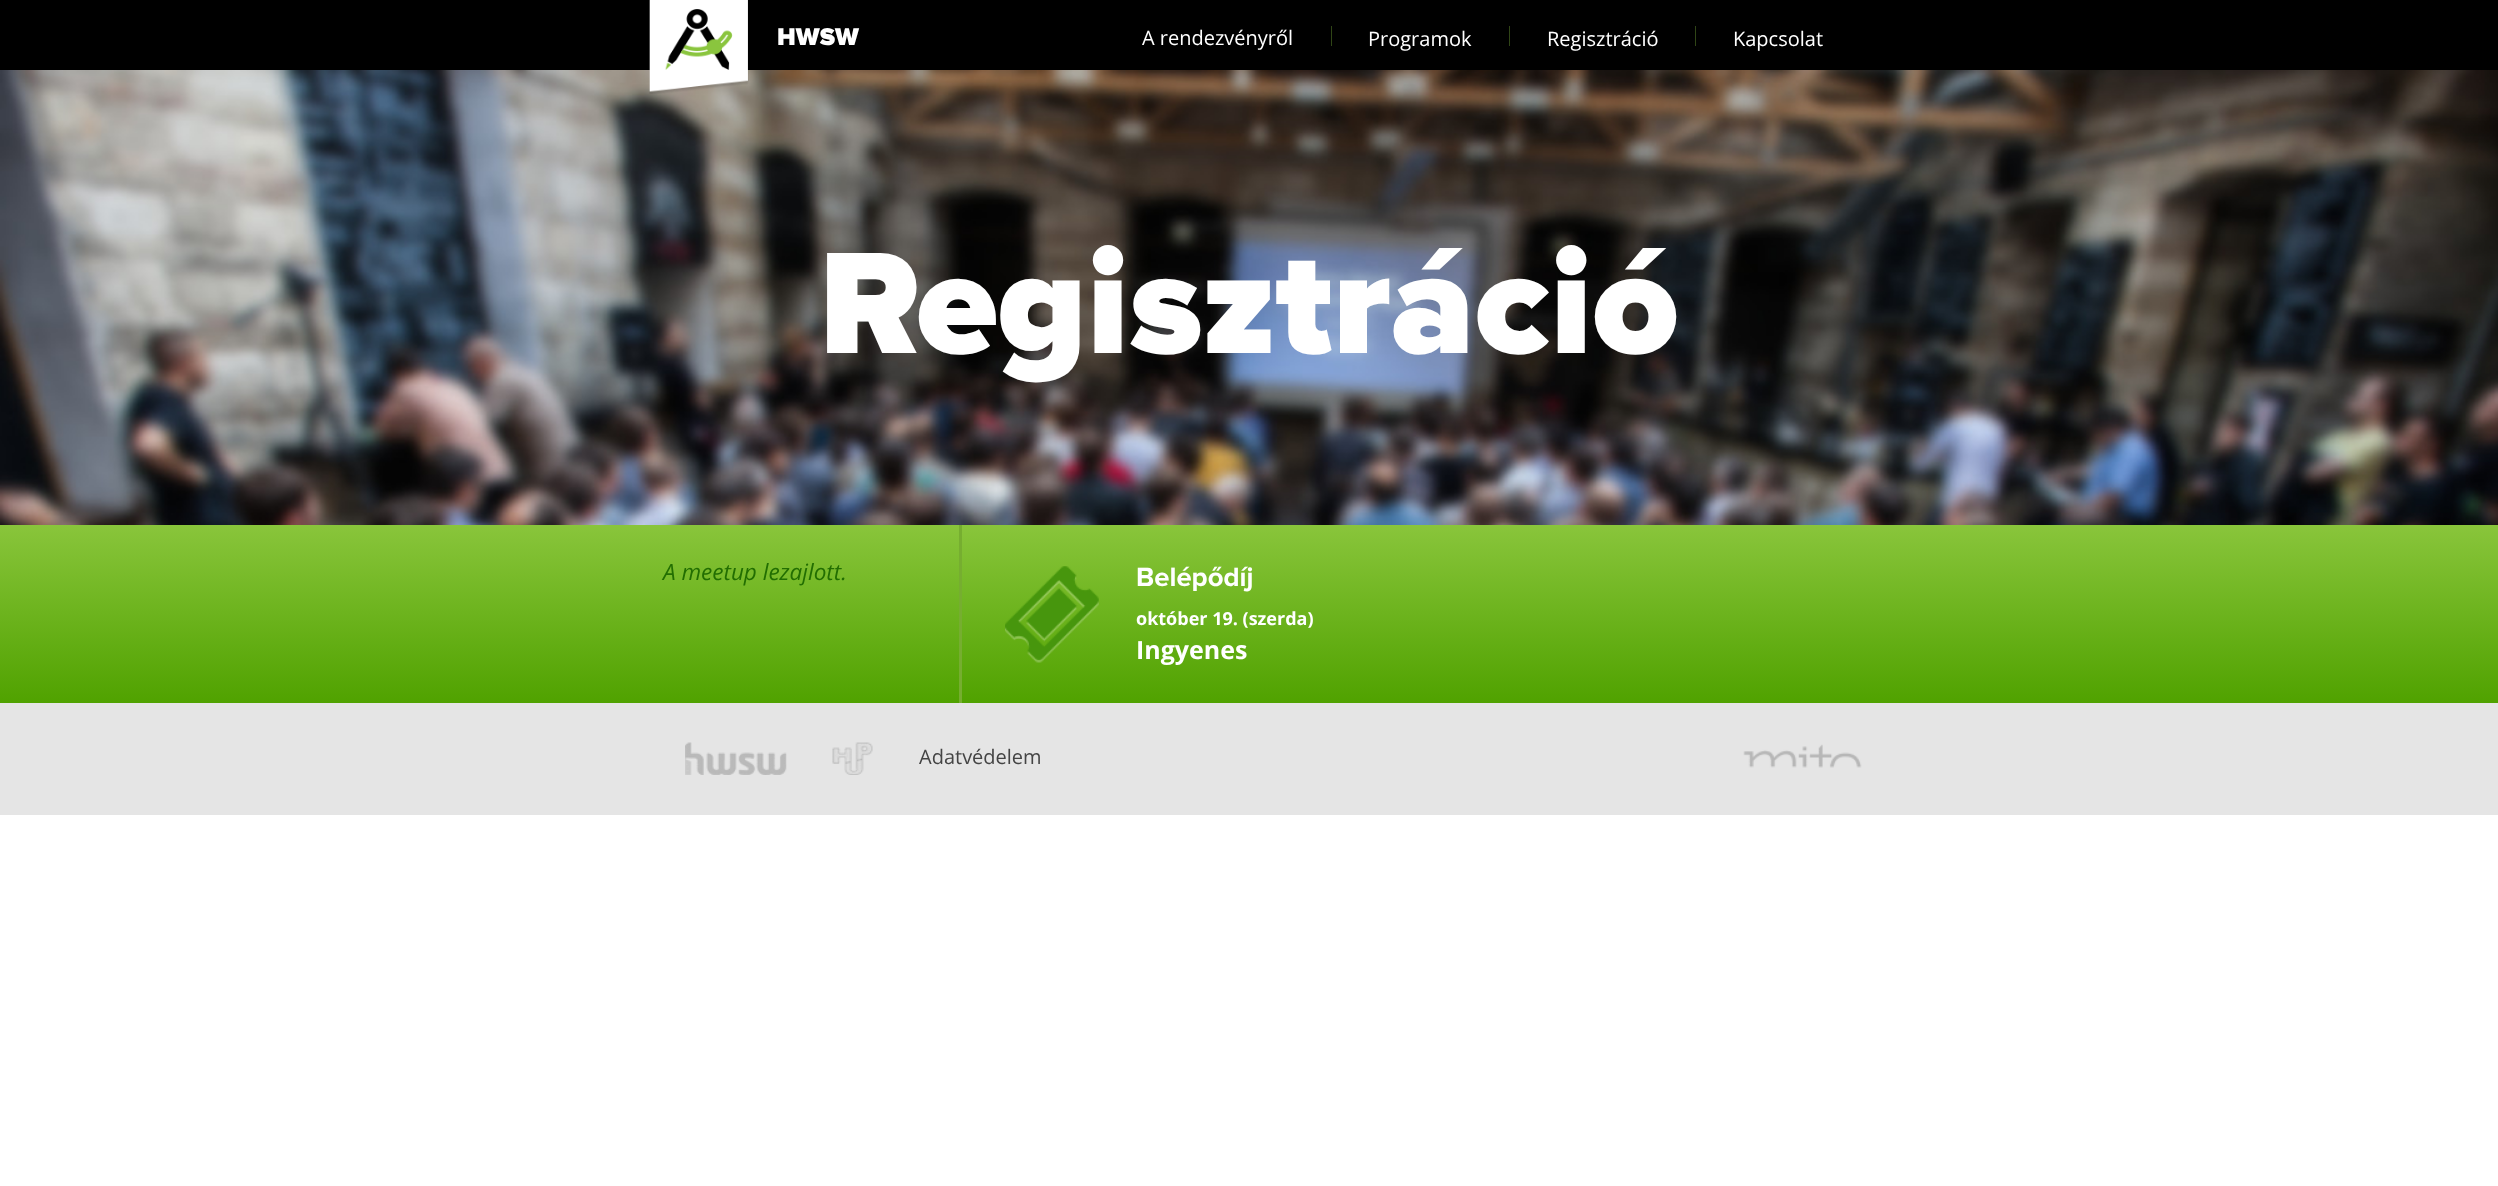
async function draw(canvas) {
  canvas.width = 2498;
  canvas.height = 1186;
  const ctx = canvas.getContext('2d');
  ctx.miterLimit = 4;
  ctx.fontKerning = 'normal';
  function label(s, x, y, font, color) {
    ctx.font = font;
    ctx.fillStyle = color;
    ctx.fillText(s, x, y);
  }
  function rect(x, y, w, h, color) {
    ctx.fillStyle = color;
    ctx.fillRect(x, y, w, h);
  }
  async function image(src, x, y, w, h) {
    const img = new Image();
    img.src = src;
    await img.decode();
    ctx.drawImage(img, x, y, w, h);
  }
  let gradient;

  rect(0, 0, 2498, 1186, '#fff');
  rect(0, 0, 2498, 70, '#000');
  await image('assets/img2.png', 0, 70, 2498, 455);
  await image('assets/img1.png', 649, 0, 100, 94);
  label('HWSW', 777, 45, '900 25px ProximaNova', '#fff');
  label('A rendezvényről', 1142, 45, '20px Open Sans', '#fff');
  rect(1331, 26, 1, 20, '#304516');
  label('Programok', 1368, 46, '20px Open Sans', '#fff');
  rect(1509, 26, 1, 20, '#304516');
  label('Regisztráció', 1547, 46, '20px Open Sans', '#fff');
  rect(1695, 26, 1, 20, '#304516');
  label('Kapcsolat', 1733, 46, '20px Open Sans', '#fff');
  label('Regisztráció', 819, 353, '900 150px ProximaNova', '#fff');
  gradient = ctx.createLinearGradient(1249, 703, 1249, 525);
  gradient.addColorStop(0, '#50a200');
  gradient.addColorStop(1, '#89c53b');
  ctx.fillStyle = gradient;
  ctx.fillRect(0, 525, 2498, 178);
  label('A meetup lezajlott.', 663, 580, 'italic 22.5px Open Sans', '#226e02');
  await image('assets/img3.png', 1005, 566, 94, 97);
  rect(959, 525, 3, 178, '#76ae30');
  label('Belépődíj', 1136, 586, 'bold 27.5px ProximaNova', '#fff');
  label('október 19. (szerda)', 1136, 625, 'bold 18px Open Sans', '#fff');
  label('Ingyenes', 1136, 659, 'bold 25px Open Sans', '#fff');
  rect(0, 703, 2498, 112, '#e5e5e5');
  await image('assets/img4.png', 685, 742, 102, 33);
  await image('assets/img5.png', 832, 742, 41, 33);
  label('Adatvédelem', 919, 764, '20px Open Sans', '#444');
  await image('assets/img6.png', 1743, 744, 119, 24);
}

draw(document.querySelector('canvas'));
